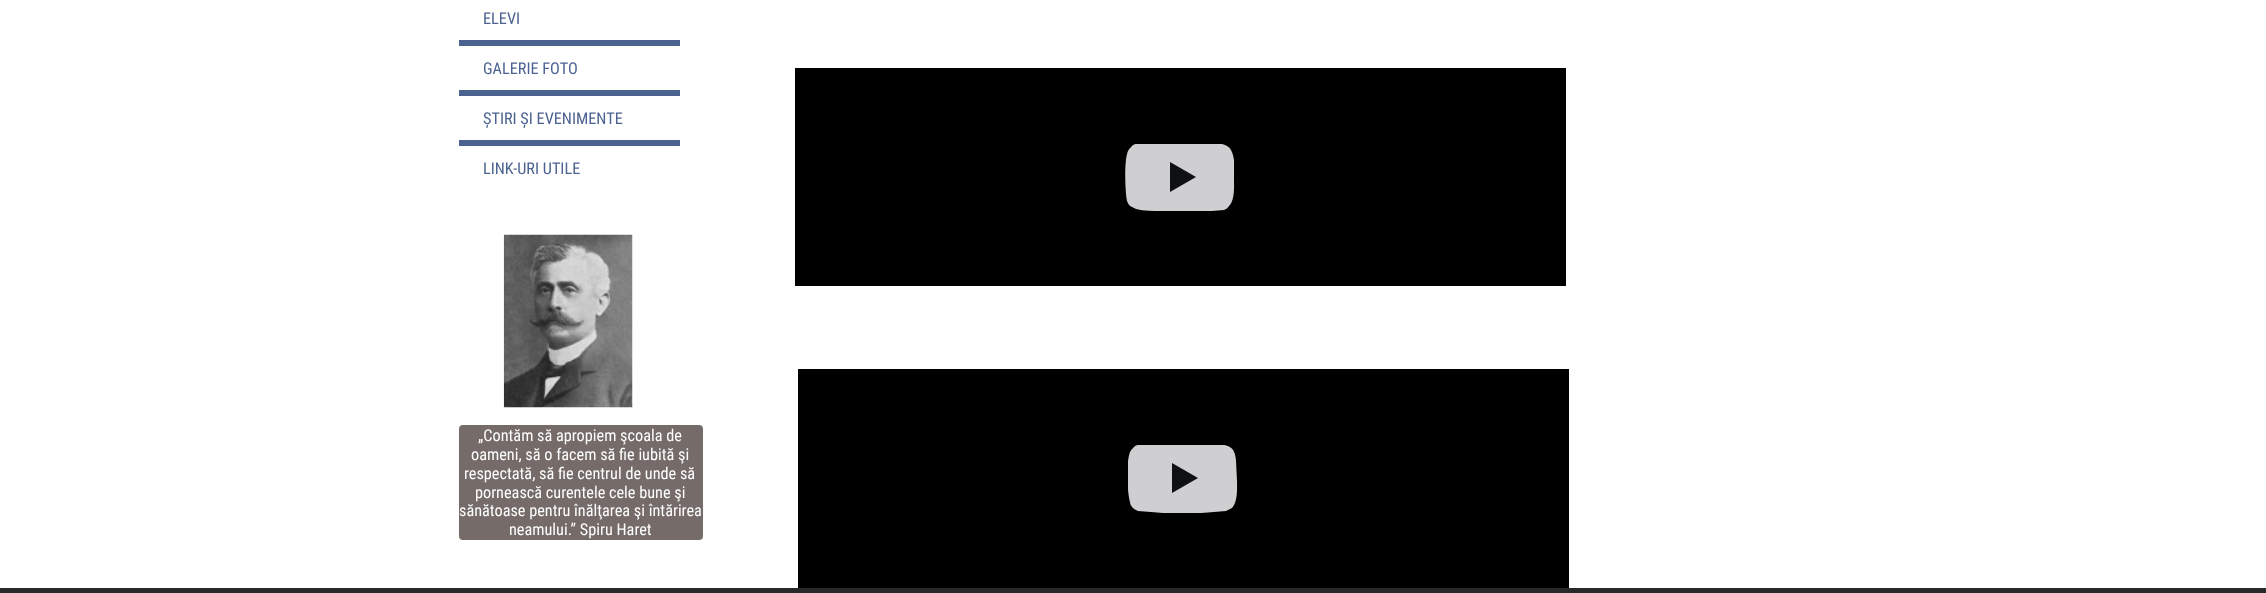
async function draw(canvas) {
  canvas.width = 2266;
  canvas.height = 593;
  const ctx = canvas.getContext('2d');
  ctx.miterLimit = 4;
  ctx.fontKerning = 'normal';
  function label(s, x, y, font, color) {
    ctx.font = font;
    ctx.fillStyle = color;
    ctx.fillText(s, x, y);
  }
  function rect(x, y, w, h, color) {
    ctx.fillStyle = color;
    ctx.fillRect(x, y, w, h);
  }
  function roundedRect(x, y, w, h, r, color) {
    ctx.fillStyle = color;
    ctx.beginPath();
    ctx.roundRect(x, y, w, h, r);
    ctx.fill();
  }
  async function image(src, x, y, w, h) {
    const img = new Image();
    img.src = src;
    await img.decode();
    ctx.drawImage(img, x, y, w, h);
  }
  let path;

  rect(0, 0, 2266, 593, '#fff');
  label('ELEVI', 483, 24, '16.25px Roboto Condensed', '#4c6291');
  rect(459, 40, 221, 106, '#4c6291');
  rect(459, 46, 221, 44, '#fff');
  label('GALERIE FOTO', 483, 74, '16.25px Roboto Condensed', '#4c6291');
  rect(459, 96, 221, 44, '#fff');
  label('ȘTIRI ȘI EVENIMENTE', 483, 124, '16.25px Roboto Condensed', '#4c6291');
  label('LINK-URI UTILE', 483, 174, '16.25px Roboto Condensed', '#4c6291');
  rect(795, 68, 771, 218, '#000');
  rect(1170, 162, 26, 30, '#0e1014');
  ctx.save();
  ctx.beginPath();
  ctx.rect(1125, 144, 110, 67);
  ctx.clip();
  ctx.fillStyle = '#cfcfd2';
  path = new Path2D('M1180 142H1153C1147 143 1139 142 1133 145C1131 147 1129 149 1128 151C1124 160 1125 191 1127 201C1128 203 1129 206 1132 207L1136 209C1144 211 1153 211 1161 211H1199C1207 211 1216 211 1224 210C1226 209 1228 208 1229 206C1235 200 1234 187 1234 179V160C1232 146 1227 144 1214 143ZM1170 162L1196 177L1170 192Z');
  ctx.fill(path);
  ctx.restore();
  await image('assets/img1.png', 503, 234, 130, 174);
  roundedRect(459, 425, 244, 115, 4, '#756b69');
  label('„Contăm să apropiem şcoala de', 478, 441, '16.25px Roboto Condensed', '#fff');
  label('oameni, să o facem să fie iubită şi', 471, 460, '16.25px Roboto Condensed', '#fff');
  label('respectată, să fie centrul de unde să', 464, 479, '16.25px Roboto Condensed', '#fff');
  label('pornească curentele cele bune şi', 475, 498, '16.25px Roboto Condensed', '#fff');
  label('sănătoase pentru înălţarea şi întărirea', 459, 516, '16.25px Roboto Condensed', '#fff');
  label('neamului.” Spiru Haret', 509, 535, '16.25px Roboto Condensed', '#fff');
  rect(798, 369, 771, 219, '#000');
  rect(1172, 463, 26, 30, '#0e1014');
  ctx.save();
  ctx.beginPath();
  ctx.rect(1128, 445, 110, 68);
  ctx.clip();
  ctx.fillStyle = '#cfcfd2';
  path = new Path2D('M1182 443L1156 444C1150 444 1141 443 1135 446C1133 448 1131 450 1130 452C1126 462 1127 492 1130 502C1130 505 1132 507 1134 509L1138 511C1147 512 1155 512 1163 513H1201C1210 512 1218 512 1226 511C1228 510 1230 509 1232 508C1238 502 1237 488 1237 481L1236 461C1235 447 1230 445 1216 444ZM1172 463L1198 478L1172 493Z');
  ctx.fill(path);
  ctx.restore();
  rect(0, 588, 2266, 5, '#292929');
}

draw(document.querySelector('canvas'));
